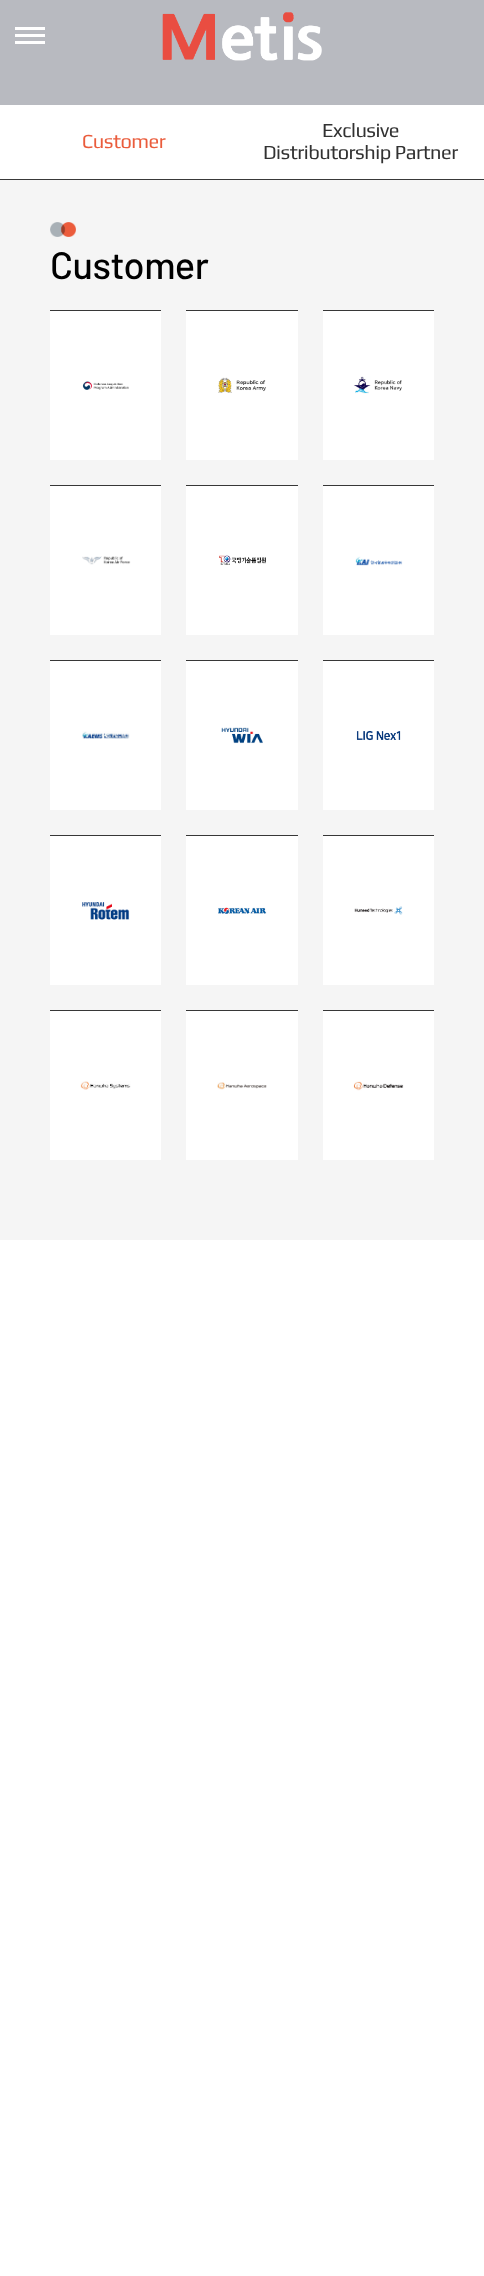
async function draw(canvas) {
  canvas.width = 484;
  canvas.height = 2276;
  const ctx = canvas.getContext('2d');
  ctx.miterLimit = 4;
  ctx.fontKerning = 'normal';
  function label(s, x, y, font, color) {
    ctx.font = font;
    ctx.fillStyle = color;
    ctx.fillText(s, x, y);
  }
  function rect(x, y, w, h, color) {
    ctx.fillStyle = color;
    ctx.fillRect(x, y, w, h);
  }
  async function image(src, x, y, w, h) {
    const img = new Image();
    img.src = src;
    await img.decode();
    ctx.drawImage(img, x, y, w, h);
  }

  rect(0, 0, 484, 2276, '#fff');
  rect(0, 0, 484, 105, '#b8bac0');
  rect(15, 27, 30, 3, '#fff');
  rect(15, 34, 30, 3, '#fff');
  rect(15, 41, 30, 3, '#fff');
  await image('assets/img1.png', 162, 12, 160, 49);
  rect(0, 179, 484, 1, '#393939');
  ctx.letterSpacing = '-0.5px';
  label('Customer', 82, 148, '20px Play', '#ea5c3c');
  label('Exclusive', 322, 137, '20px Play', '#323232');
  label('Distributorship Partner', 263, 159, '20px Play', '#323232');
  rect(0, 180, 484, 1060, '#f5f5f5');
  await image('assets/img2.png', 50, 222, 26, 15);
  label('Customer', 50, 279, '500 38px Barlow', '#000');
  rect(50, 311, 111, 149, '#fff');
  rect(50, 310, 111, 1, '#373737');
  await image('assets/img3.png', 82, 381, 47, 9);
  rect(186, 311, 112, 149, '#fff');
  rect(186, 310, 112, 1, '#373737');
  await image('assets/img4.png', 218, 377, 48, 16);
  rect(323, 311, 111, 149, '#fff');
  rect(323, 310, 111, 1, '#373737');
  await image('assets/img5.png', 353, 376, 49, 18);
  rect(50, 486, 111, 149, '#fff');
  rect(50, 485, 111, 1, '#373737');
  await image('assets/img6.png', 82, 556, 49, 9);
  rect(186, 486, 112, 149, '#fff');
  rect(186, 485, 112, 1, '#373737');
  await image('assets/img7.png', 219, 555, 47, 10);
  rect(323, 486, 111, 149, '#fff');
  rect(323, 485, 111, 1, '#373737');
  await image('assets/img8.png', 355, 556, 48, 10);
  rect(50, 661, 111, 149, '#fff');
  rect(50, 660, 111, 1, '#373737');
  await image('assets/img9.png', 82, 731, 48, 8);
  rect(186, 661, 112, 149, '#fff');
  rect(186, 660, 112, 1, '#373737');
  await image('assets/img10.png', 221, 727, 42, 17);
  rect(323, 661, 111, 149, '#fff');
  rect(323, 660, 111, 1, '#373737');
  await image('assets/img11.png', 356, 730, 45, 11);
  rect(50, 836, 111, 149, '#fff');
  rect(50, 835, 111, 1, '#373737');
  await image('assets/img12.png', 82, 902, 48, 18);
  rect(186, 836, 112, 149, '#fff');
  rect(186, 835, 112, 1, '#373737');
  await image('assets/img13.png', 218, 907, 49, 7);
  rect(323, 836, 111, 149, '#fff');
  rect(323, 835, 111, 1, '#373737');
  await image('assets/img14.png', 354, 906, 49, 9);
  rect(50, 1011, 111, 149, '#fff');
  rect(50, 1010, 111, 1, '#373737');
  await image('assets/img15.png', 80, 1081, 51, 9);
  rect(186, 1011, 112, 149, '#fff');
  rect(186, 1010, 112, 1, '#373737');
  await image('assets/img16.png', 217, 1082, 50, 8);
  rect(323, 1011, 111, 149, '#fff');
  rect(323, 1010, 111, 1, '#373737');
  await image('assets/img17.png', 353, 1081, 51, 10);
}

draw(document.querySelector('canvas'));
